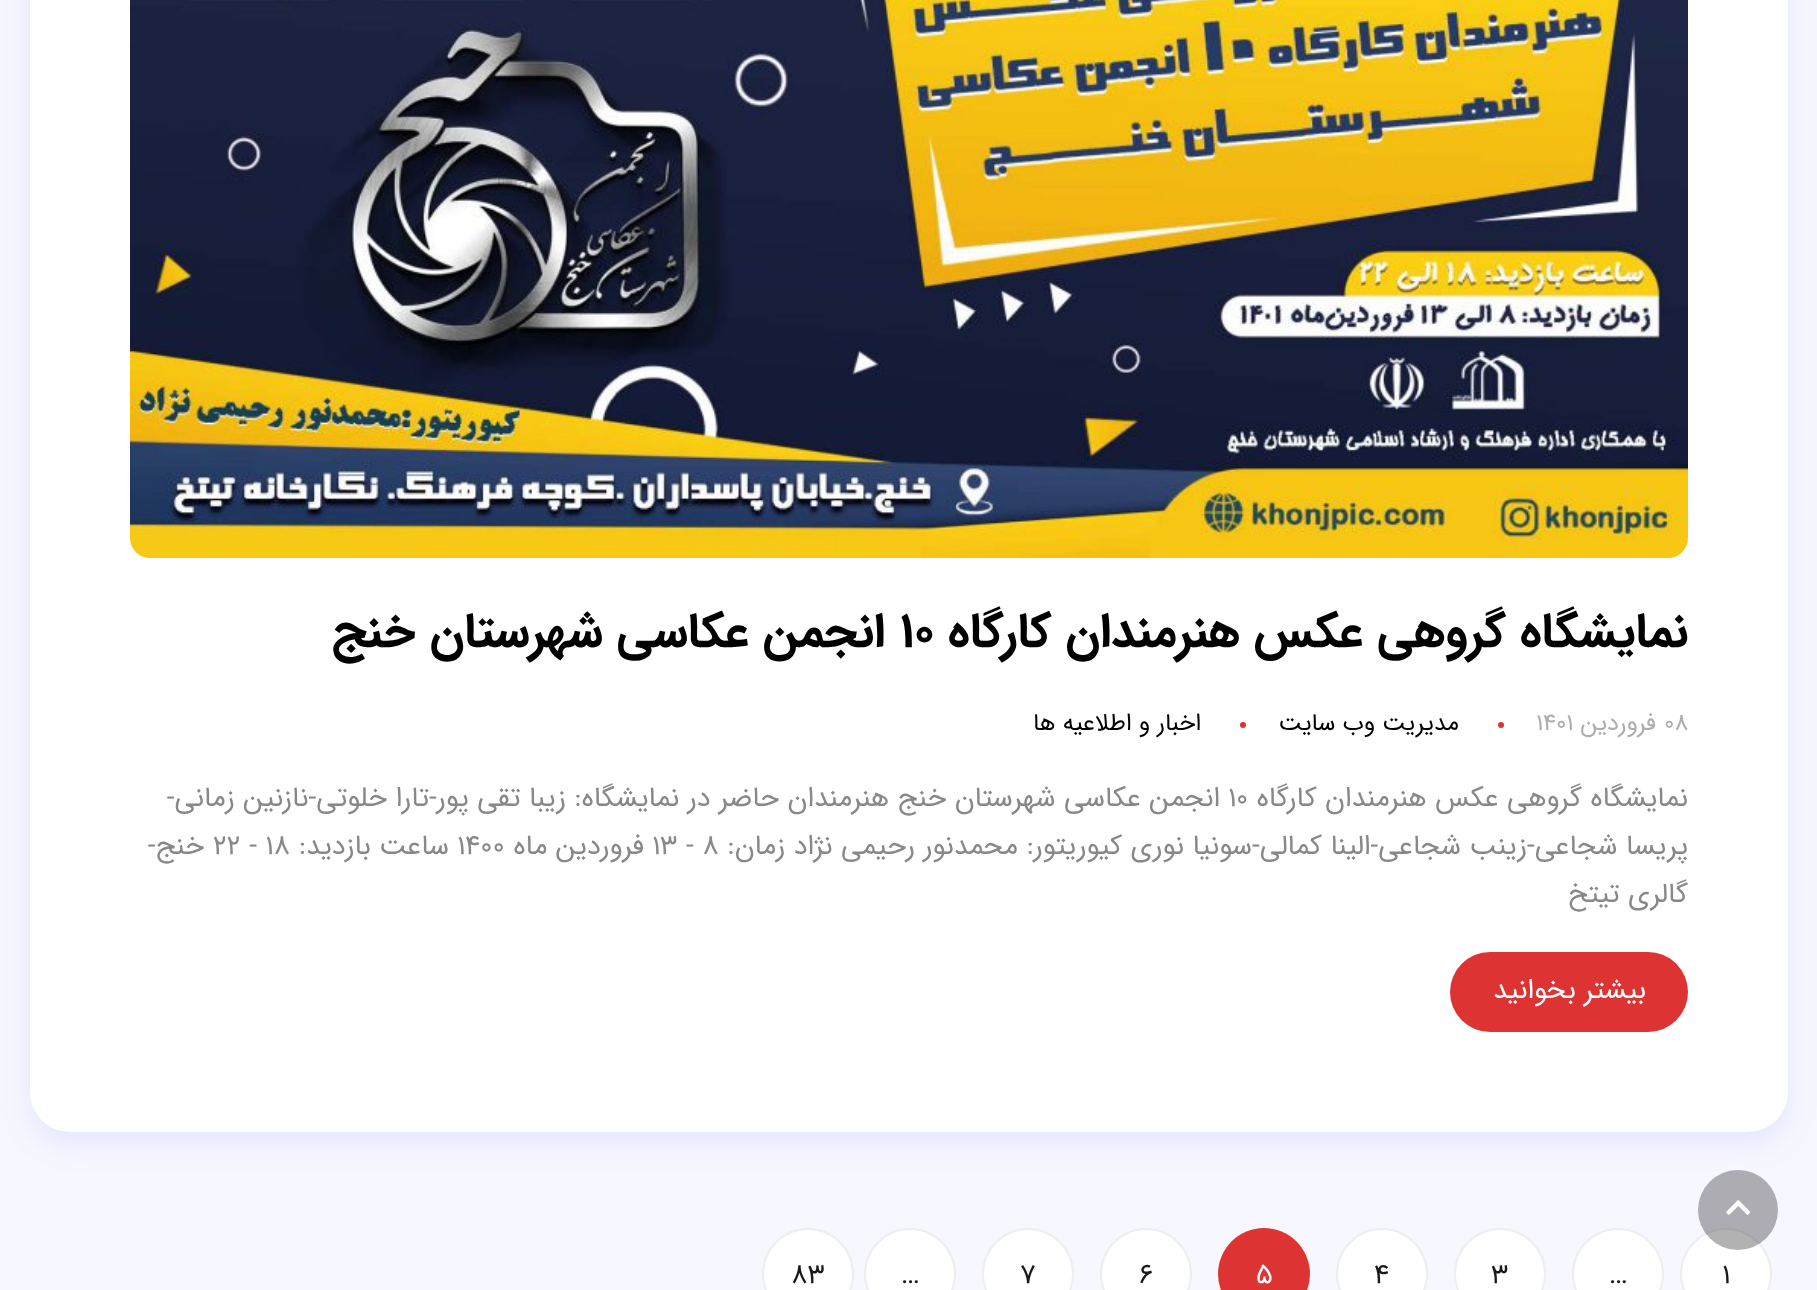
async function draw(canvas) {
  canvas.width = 1817;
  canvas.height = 1290;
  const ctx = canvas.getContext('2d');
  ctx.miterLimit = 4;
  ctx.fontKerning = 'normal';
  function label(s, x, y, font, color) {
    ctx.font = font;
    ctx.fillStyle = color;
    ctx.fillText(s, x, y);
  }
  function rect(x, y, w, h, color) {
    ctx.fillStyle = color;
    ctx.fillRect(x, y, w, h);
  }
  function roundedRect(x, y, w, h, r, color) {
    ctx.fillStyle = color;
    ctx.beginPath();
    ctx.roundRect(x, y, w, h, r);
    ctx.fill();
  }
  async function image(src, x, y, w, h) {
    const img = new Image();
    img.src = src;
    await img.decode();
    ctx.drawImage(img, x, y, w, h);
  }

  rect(0, 0, 1817, 1290, '#f6f7ff');
  ctx.fillStyle = '#4a63e71a';
  ctx.filter = 'blur(15px)';
  ctx.beginPath();
  ctx.roundRect(30, -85, 1758, 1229, 40);
  ctx.fill();
  ctx.filter = 'none';
  ctx.fillStyle = '#fff';
  ctx.beginPath();
  ctx.arc(1726, 1274, 45, 0, 2 * Math.PI);
  ctx.fill();
  ctx.strokeStyle = '#eee';
  ctx.lineWidth = 2;
  ctx.stroke();
  ctx.fillStyle = '#0000004d';
  ctx.beginPath();
  ctx.arc(1738, 1210, 40, 0, 2 * Math.PI);
  ctx.fill();
  await image('assets/img1.png', 1726, 1200, 25, 15);
  roundedRect(30, -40, 1758, 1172, 40, '#fff');
  await image('assets/img2.png', 130, 0, 1558, 558);
  ctx.direction = 'rtl';
  label('نمایشگاه گروهی عکس هنرمندان کارگاه', 1688, 646, 'bold 48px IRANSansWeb', '#000');
  ctx.direction = 'ltr';
  label('۱۰', 900, 646, 'bold 48px IRANSansWeb', '#000');
  ctx.direction = 'rtl';
  label('انجمن عکاسی شهرستان خنج', 885, 646, 'bold 48px IRANSansWeb', '#000');
  ctx.direction = 'ltr';
  label('۰۸', 1664, 730, '24px IRANSansWeb', '#adadad');
  ctx.direction = 'rtl';
  label('فروردین', 1656, 730, '24px IRANSansWeb', '#adadad');
  ctx.direction = 'ltr';
  label('۱۴۰۱', 1536, 730, '24px IRANSansWeb', '#adadad');
  ctx.fillStyle = '#d33';
  ctx.beginPath();
  ctx.arc(1501, 725, 3, 0, 2 * Math.PI);
  ctx.fill();
  ctx.direction = 'rtl';
  label('مدیریت وب سایت', 1459, 730, '24px IRANSansWeb', '#000');
  ctx.fillStyle = '#d33';
  ctx.beginPath();
  ctx.arc(1243, 725, 3, 0, 2 * Math.PI);
  ctx.fill();
  label('اخبار و اطلاعیه ها', 1201, 730, '24px IRANSansWeb', '#000');
  label('نمایشگاه گروهی عکس هنرمندان کارگاه', 1688, 806, '28px IRANSansWeb', '#888');
  ctx.direction = 'ltr';
  label('۱۰', 1228, 806, '28px IRANSansWeb', '#888');
  ctx.direction = 'rtl';
  label('انجمن عکاسی شهرستان خنج هنرمندان حاضر در نمایشگاه: زیبا تقی پور-تارا خلوتی-نازنین زمانی-', 1220, 806, '28px IRANSansWeb', '#888');
  label('پریسا شجاعی-زینب شجاعی-الینا کمالی-سونیا نوری کیوریتور: محمدنور رحیمی نژاد زمان:', 1688, 854, '28px IRANSansWeb', '#888');
  ctx.direction = 'ltr';
  label('۱۳ - ۸', 652, 854, '28px IRANSansWeb', '#888');
  ctx.direction = 'rtl';
  label('فروردین ماه', 644, 854, '28px IRANSansWeb', '#888');
  ctx.direction = 'ltr';
  label('۱۴۰۰', 457, 854, '28px IRANSansWeb', '#888');
  ctx.direction = 'rtl';
  label('ساعت بازدید:', 449, 854, '28px IRANSansWeb', '#888');
  ctx.direction = 'ltr';
  label('۲۲ - ۱۸', 213, 854, '28px IRANSansWeb', '#888');
  ctx.direction = 'rtl';
  label('خنج-', 204, 854, '28px IRANSansWeb', '#888');
  label('گالری تیتخ', 1688, 902, '28px IRANSansWeb', '#888');
  roundedRect(1450, 952, 238, 80, 40, '#d33');
  label('بیشتر بخوانید', 1646, 998, '28px IRANSansWeb', '#fff');
  ctx.direction = 'ltr';
  label('۱', 1722, 1283, '28px IRANSansWeb', '#1a1a1a');
  ctx.fillStyle = '#fff';
  ctx.beginPath();
  ctx.arc(1618, 1274, 45, 0, 2 * Math.PI);
  ctx.fill();
  ctx.stroke();
  label('…', 1609, 1283, '28px IRANSansWeb', '#1a1a1a');
  ctx.fillStyle = '#fff';
  ctx.beginPath();
  ctx.arc(1500, 1274, 45, 0, 2 * Math.PI);
  ctx.fill();
  ctx.stroke();
  label('۳', 1491, 1283, '28px IRANSansWeb', '#1a1a1a');
  ctx.fillStyle = '#fff';
  ctx.beginPath();
  ctx.arc(1382, 1274, 45, 0, 2 * Math.PI);
  ctx.fill();
  ctx.stroke();
  label('۴', 1374, 1283, '28px IRANSansWeb', '#1a1a1a');
  ctx.fillStyle = '#d33';
  ctx.beginPath();
  ctx.arc(1264, 1274, 46, 0, 2 * Math.PI);
  ctx.fill();
  label('۵', 1256, 1283, '28px IRANSansWeb', '#fff');
  ctx.beginPath();
  ctx.arc(1146, 1274, 45, 0, 2 * Math.PI);
  ctx.fill();
  ctx.stroke();
  label('۶', 1139, 1283, '28px IRANSansWeb', '#1a1a1a');
  ctx.fillStyle = '#fff';
  ctx.beginPath();
  ctx.arc(1028, 1274, 45, 0, 2 * Math.PI);
  ctx.fill();
  ctx.stroke();
  label('۷', 1020, 1283, '28px IRANSansWeb', '#1a1a1a');
  ctx.fillStyle = '#fff';
  ctx.beginPath();
  ctx.arc(910, 1274, 45, 0, 2 * Math.PI);
  ctx.fill();
  ctx.stroke();
  label('…', 901, 1283, '28px IRANSansWeb', '#1a1a1a');
  ctx.fillStyle = '#fff';
  ctx.beginPath();
  ctx.arc(808, 1274, 45, 0, 2 * Math.PI);
  ctx.fill();
  ctx.stroke();
  label('۸۳', 791, 1283, '28px IRANSansWeb', '#1a1a1a');
}

draw(document.querySelector('canvas'));
